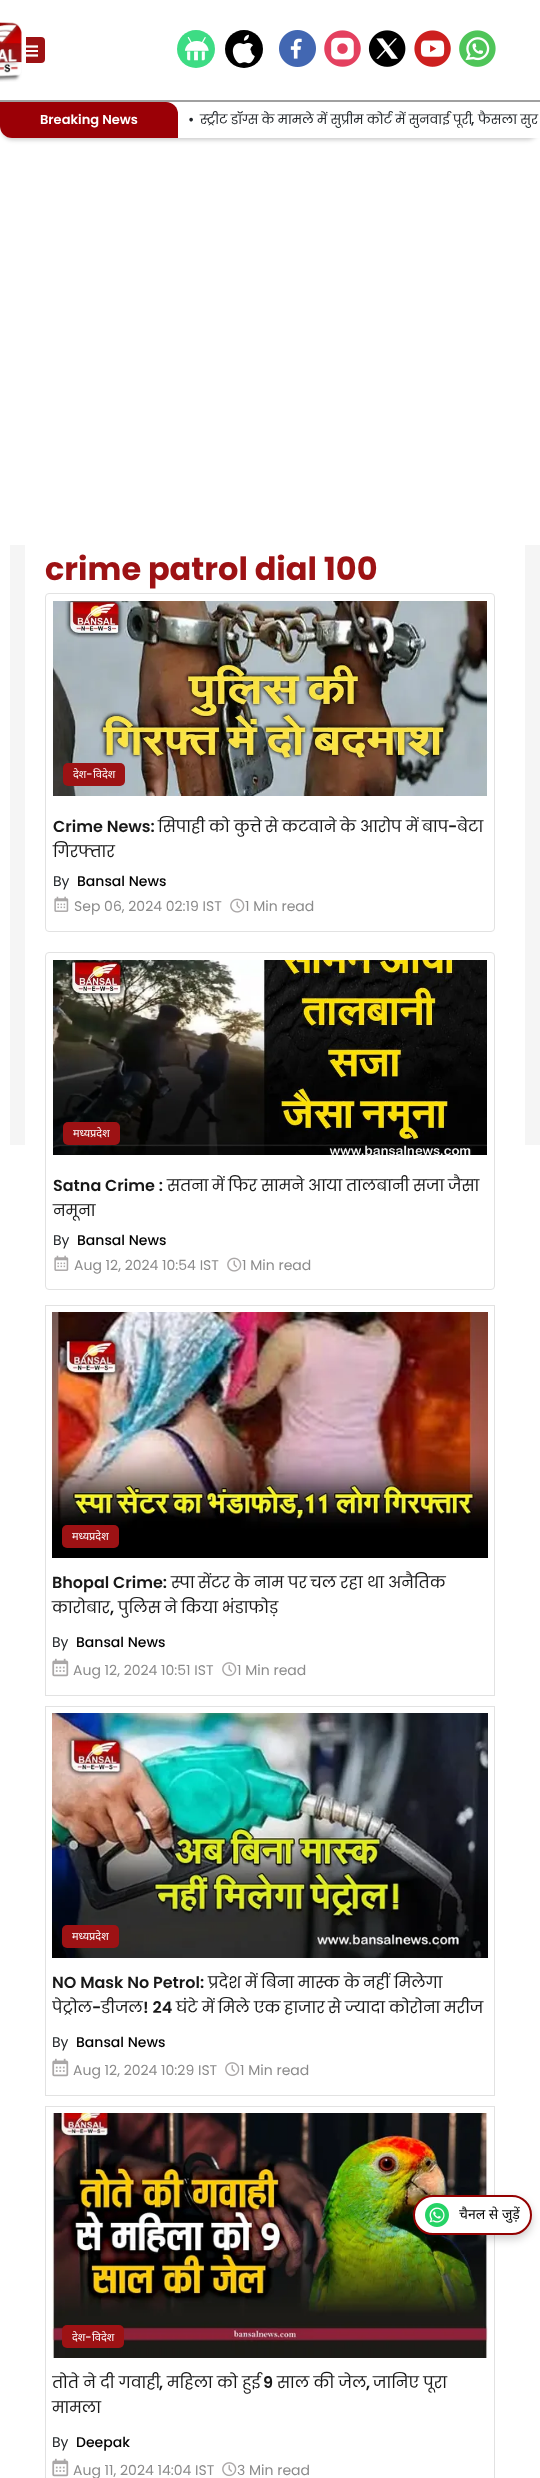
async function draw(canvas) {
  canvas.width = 540;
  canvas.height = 2478;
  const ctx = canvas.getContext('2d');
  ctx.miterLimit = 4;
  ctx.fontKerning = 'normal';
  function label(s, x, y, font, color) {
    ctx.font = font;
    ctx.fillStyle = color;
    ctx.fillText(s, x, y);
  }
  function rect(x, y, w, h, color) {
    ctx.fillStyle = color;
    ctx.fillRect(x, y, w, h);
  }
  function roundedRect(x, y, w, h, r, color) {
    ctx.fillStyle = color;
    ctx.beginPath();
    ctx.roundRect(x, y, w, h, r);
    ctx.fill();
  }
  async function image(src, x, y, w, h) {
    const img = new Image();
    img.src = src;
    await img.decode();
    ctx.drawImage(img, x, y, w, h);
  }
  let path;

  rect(0, 0, 540, 2478, '#fff');
  roundedRect(16, 37, 29, 26, 4, '#9d1214');
  path = new Path2D('M23 46.5H38');
  ctx.strokeStyle = '#fff';
  ctx.lineWidth = 2.3;
  ctx.stroke(path);
  rect(23, 50, 15, 2, '#fff');
  path = new Path2D('M23 55.5H38');
  ctx.stroke(path);
  rect(16, 37, 10, 26, '#fff');
  await image('assets/img1.png', 0, 22, 22, 60);
  ctx.fillStyle = '#00000033';
  ctx.filter = 'blur(2px)';
  ctx.beginPath();
  ctx.roundRect(2, 108, 536, 32, 10);
  ctx.fill();
  ctx.filter = 'none';
  rect(0, 100, 540, 2, '#a0a0a0');
  ctx.fillStyle = '#3ddc84';
  ctx.beginPath();
  ctx.arc(196, 49, 19, 0, 2 * Math.PI);
  ctx.fill();
  await image('assets/img2.png', 184, 37, 25, 24);
  ctx.fillStyle = '#000';
  ctx.beginPath();
  ctx.arc(244, 49, 19, 0, 2 * Math.PI);
  ctx.fill();
  await image('assets/img3.png', 232, 34, 23, 30);
  await image('assets/img4.png', 279, 30, 37, 37);
  await image('assets/img5.png', 324, 30, 37, 37);
  await image('assets/img6.png', 368, 30, 38, 37);
  await image('assets/img7.png', 414, 30, 37, 37);
  await image('assets/img8.png', 459, 30, 37, 37);
  ctx.fillStyle = '#fff';
  ctx.beginPath();
  ctx.roundRect(0, 102, 540, 36, [0, 0, 0, 12]);
  ctx.fill();
  ctx.fillStyle = '#9b0006';
  ctx.beginPath();
  ctx.roundRect(0, 102, 178, 36, [0, 12, 0, 12]);
  ctx.fill();
  label('Breaking News', 40, 124, '600 13px Poppins', '#fff');
  label('•', 188, 124, '600 13px Poppins', '#212529');
  ctx.wordSpacing = '-0.25px';
  label('स्ट्रीट डॉग्स के मामले में सुप्रीम कोर्ट में सुनवाई पूरी', 200, 124, '13px Poppins', '#212529');
  ctx.wordSpacing = '0px';
  label(',', 471, 124, '600 13px Poppins', '#212529');
  ctx.wordSpacing = '-0.25px';
  label('फैसला सुर', 478, 124, '13px Poppins', '#212529');
  rect(10, 545, 15, 600, '#f5f5f5');
  ctx.wordSpacing = '0px';
  label('crime patrol dial 100', 45, 580, 'bold 32px Poppins', '#9d1214');
  ctx.beginPath();
  ctx.roundRect(45.5, 593.5, 449, 338, 3.5);
  ctx.strokeStyle = '#e2e2e2';
  ctx.lineWidth = 1;
  ctx.stroke();
  await image('assets/img9.png', 53, 601, 434, 195);
  roundedRect(63, 763, 62, 23, 5, '#9d1214');
  label('देश', 73, 778, '11px Noto Sans', '#fff');
  label('-', 86, 778, '500 11px Poppins', '#fff');
  label('विदेश', 93, 778, '11px Noto Sans', '#fff');
  label('Crime News:', 53, 832, '600 16px Poppins', '#181818');
  label('सिपाही', 158, 832, '16px Poppins', '#181818');
  label('को', 209, 832, '16px Poppins', '#181818');
  label('कुत्ते', 234, 832, '16px Poppins', '#181818');
  label('से', 265, 832, '16px Poppins', '#181818');
  label('कटवाने', 282, 832, '16px Poppins', '#181818');
  label('के', 340, 832, '16px Poppins', '#181818');
  label('आरोप', 360, 832, '16px Poppins', '#181818');
  label('में', 406, 832, '16px Poppins', '#181818');
  label('बाप', 422, 832, '16px Poppins', '#181818');
  label('-', 448, 832, '600 16px Poppins', '#181818');
  label('बेटा', 457, 832, '16px Poppins', '#181818');
  label('गिरफ्तार', 53, 857, '16px Poppins', '#181818');
  label('By', 53, 886, '14px "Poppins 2"', '#212529');
  label('Bansal News', 77, 886, '500 14px Poppins', '#000');
  await image('assets/img10.png', 54, 896, 15, 16);
  label('Sep 06, 2024 02:19 IST', 74, 911, '14px "Poppins 2"', '#8b8b8b');
  await image('assets/img11.png', 230, 898, 15, 15);
  label('1 Min read', 245, 911, '14px "Poppins 2"', '#8b8b8b');
  ctx.beginPath();
  ctx.roundRect(45.5, 952.5, 449, 337, 3.5);
  ctx.stroke();
  await image('assets/img12.png', 53, 960, 434, 195);
  roundedRect(63, 1122, 57, 23, 5, '#9d1214');
  label('मध्यप्रदेश', 73, 1137, '11px Noto Sans', '#fff');
  label('Satna Crime :', 53, 1191, '600 16px Poppins', '#181818');
  label('सतना', 167, 1191, '16px Poppins', '#181818');
  label('में', 212, 1191, '16px Poppins', '#181818');
  label('फिर', 228, 1191, '16px Poppins', '#181818');
  label('सामने', 261, 1191, '16px Poppins', '#181818');
  label('आया', 308, 1191, '16px Poppins', '#181818');
  label('तालबानी', 346, 1191, '16px Poppins', '#181818');
  label('सजा', 413, 1191, '16px Poppins', '#181818');
  label('जैसा', 448, 1191, '16px Poppins', '#181818');
  label('नमूना', 53, 1216, '16px Poppins', '#181818');
  label('By', 53, 1245, '14px "Poppins 2"', '#212529');
  label('Bansal News', 77, 1245, '500 14px Poppins', '#000');
  await image('assets/img10.png', 54, 1255, 15, 16);
  label('Aug 12, 2024 10:54 IST', 74, 1270, '14px "Poppins 2"', '#8b8b8b');
  await image('assets/img11.png', 227, 1257, 15, 15);
  label('1 Min read', 242, 1270, '14px "Poppins 2"', '#8b8b8b');
  ctx.strokeRect(45.5, 1305.5, 449, 390);
  await image('assets/img13.png', 52, 1312, 436, 246);
  roundedRect(62, 1525, 57, 23, 5, '#9d1214');
  label('मध्यप्रदेश', 72, 1540, '11px Noto Sans', '#fff');
  label('Bhopal Crime:', 52, 1588, '600 16px Poppins', '#181818');
  label('स्पा', 171, 1588, '16px Poppins', '#181818');
  label('सेंटर', 198, 1588, '16px Poppins', '#181818');
  label('के', 234, 1588, '16px Poppins', '#181818');
  label('नाम', 254, 1588, '16px Poppins', '#181818');
  label('पर', 288, 1588, '16px Poppins', '#181818');
  label('चल', 310, 1588, '16px Poppins', '#181818');
  label('रहा', 340, 1588, '16px Poppins', '#181818');
  label('था', 367, 1588, '16px Poppins', '#181818');
  label('अनैतिक', 388, 1588, '16px Poppins', '#181818');
  label('कारोबार', 52, 1613, '16px Poppins', '#181818');
  label(',', 110, 1613, '600 16px Poppins', '#181818');
  ctx.wordSpacing = '-0.5px';
  label('पुलिस ने किया भंडाफोड़', 118, 1613, '16px Poppins', '#181818');
  ctx.wordSpacing = '0px';
  label('By', 52, 1647, '14px "Poppins 2"', '#212529');
  label('Bansal News', 76, 1647, '500 14px Poppins', '#000');
  await image('assets/img14.png', 52, 1658, 17, 19);
  label('Aug 12, 2024 10:51 IST', 73, 1675, '14px "Poppins 2"', '#8b8b8b');
  await image('assets/img15.png', 222, 1662, 15, 15);
  label('1 Min read', 237, 1675, '14px "Poppins 2"', '#8b8b8b');
  ctx.strokeRect(45.5, 1706.5, 449, 389);
  await image('assets/img16.png', 52, 1713, 436, 245);
  roundedRect(62, 1925, 57, 23, 5, '#9d1214');
  label('मध्यप्रदेश', 72, 1940, '11px Noto Sans', '#fff');
  label('NO Mask No Petrol:', 52, 1988, '600 16px Poppins', '#181818');
  label('प्रदेश', 208, 1988, '16px Poppins', '#181818');
  label('में', 245, 1988, '16px Poppins', '#181818');
  label('बिना', 261, 1988, '16px Poppins', '#181818');
  label('मास्क', 298, 1988, '16px Poppins', '#181818');
  label('के', 344, 1988, '16px Poppins', '#181818');
  label('नहीं', 363, 1988, '16px Poppins', '#181818');
  label('मिलेगा', 394, 1988, '16px Poppins', '#181818');
  ctx.save();
  ctx.beginPath();
  ctx.rect(52, 1967, 436, 53);
  ctx.clip();
  label('पेट्रोल', 52, 2013, '16px Poppins', '#181818');
  ctx.restore();
  label('-', 92, 2013, '600 16px Poppins', '#181818');
  label('डीजल', 101, 2013, '16px Poppins', '#181818');
  label('! 24', 143, 2013, '600 16px Poppins', '#181818');
  label('घंटे', 176, 2013, '16px Poppins', '#181818');
  label('में', 202, 2013, '16px Poppins', '#181818');
  label('मिले', 218, 2013, '16px Poppins', '#181818');
  label('एक', 254, 2013, '16px Poppins', '#181818');
  label('हाजार', 284, 2013, '16px Poppins', '#181818');
  label('से', 328, 2013, '16px Poppins', '#181818');
  label('ज्यादा', 345, 2013, '16px Poppins', '#181818');
  label('कोरोना', 389, 2013, '16px Poppins', '#181818');
  label('मरीज', 444, 2013, '16px Poppins', '#181818');
  label('By', 52, 2047, '14px "Poppins 2"', '#212529');
  label('Bansal News', 76, 2047, '500 14px Poppins', '#000');
  await image('assets/img14.png', 52, 2058, 17, 19);
  label('Aug 12, 2024 10:29 IST', 73, 2075, '14px "Poppins 2"', '#8b8b8b');
  await image('assets/img15.png', 225, 2062, 15, 15);
  label('1 Min read', 240, 2075, '14px "Poppins 2"', '#8b8b8b');
  ctx.strokeRect(45.5, 2106.5, 449, 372);
  await image('assets/img17.png', 52, 2113, 436, 245);
  roundedRect(62, 2325, 62, 23, 5, '#9d1214');
  label('देश', 72, 2341, '11px Noto Sans', '#fff');
  label('-', 85, 2341, '500 11px Poppins', '#fff');
  label('विदेश', 92, 2341, '11px Noto Sans', '#fff');
  ctx.save();
  ctx.beginPath();
  ctx.rect(52, 2367, 436, 53);
  ctx.clip();
  label('तोते ने दी गवाही', 52, 2388, '16px Poppins', '#181818');
  ctx.restore();
  label(',', 159, 2388, '600 16px Poppins', '#181818');
  label('महिला को हुई', 167, 2388, '16px Poppins', '#181818');
  label('9', 263, 2388, '600 16px Poppins', '#181818');
  label('साल की जेल', 277, 2388, '16px Poppins', '#181818');
  label(',', 366, 2388, '600 16px Poppins', '#181818');
  label('जानिए पूरा', 373, 2388, '16px Poppins', '#181818');
  label('मामला', 52, 2413, '16px Poppins', '#181818');
  label('By', 52, 2447, '14px "Poppins 2"', '#212529');
  label('Deepak', 76, 2447, '500 14px Poppins', '#000');
  await image('assets/img14.png', 52, 2458, 17, 19);
  label('Aug 11, 2024 14:04 IST', 73, 2475, '14px "Poppins 2"', '#8b8b8b');
  await image('assets/img15.png', 222, 2462, 15, 15);
  label('3 Min read', 237, 2475, '14px "Poppins 2"', '#8b8b8b');
  rect(525, 545, 15, 600, '#f5f5f5');
  ctx.fillStyle = '#00000033';
  ctx.filter = 'blur(4px)';
  ctx.beginPath();
  ctx.roundRect(413, 2199, 119, 40, 20);
  ctx.fill();
  ctx.filter = 'none';
  ctx.fillStyle = '#fff';
  ctx.beginPath();
  ctx.roundRect(414, 2196, 117, 38, 19);
  ctx.fill();
  ctx.strokeStyle = '#940000';
  ctx.lineWidth = 2;
  ctx.stroke();
  await image('assets/img18.png', 425, 2203, 24, 24);
  label('चैनल से जुड़ें', 459, 2219, '14px Noto Sans', '#080808');
}

draw(document.querySelector('canvas'));
